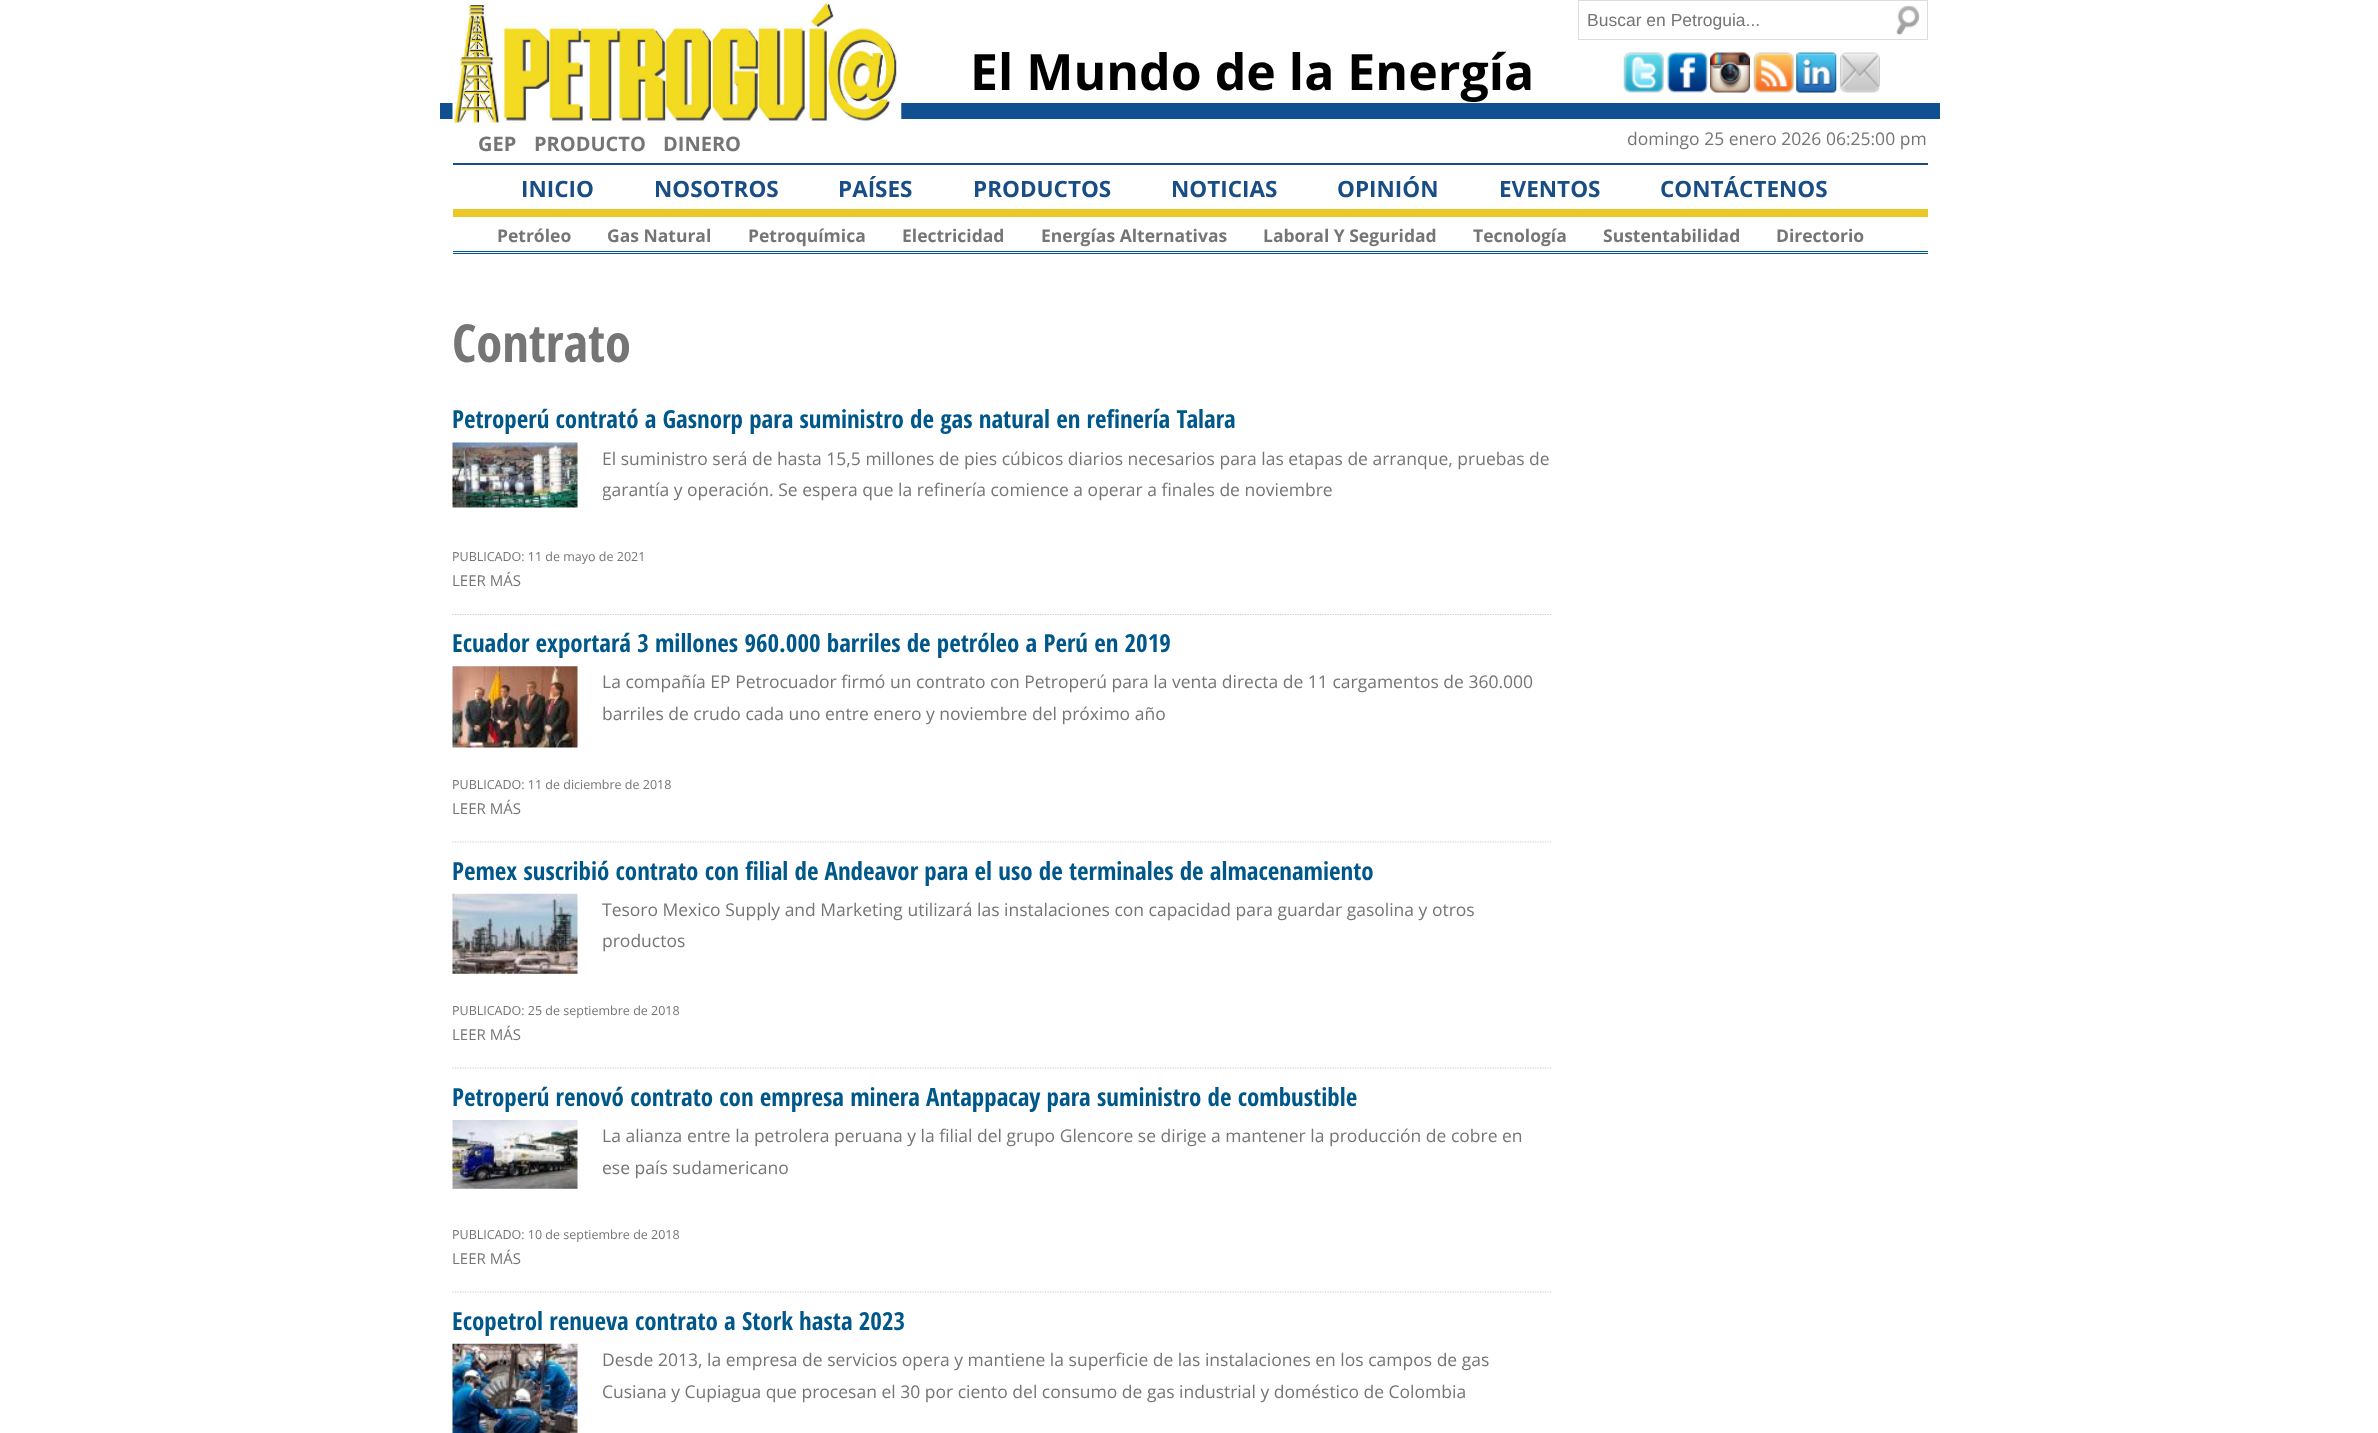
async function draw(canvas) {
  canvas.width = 2378;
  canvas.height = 1433;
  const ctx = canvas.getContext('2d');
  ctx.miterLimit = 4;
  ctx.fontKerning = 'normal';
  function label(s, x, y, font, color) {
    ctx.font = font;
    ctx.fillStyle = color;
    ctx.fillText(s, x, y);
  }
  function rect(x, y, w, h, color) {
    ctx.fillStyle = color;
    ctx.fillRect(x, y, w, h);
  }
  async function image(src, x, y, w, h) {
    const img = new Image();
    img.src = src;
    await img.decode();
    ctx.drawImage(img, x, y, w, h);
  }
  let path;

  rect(0, 0, 2378, 1433, '#fff');
  rect(440, 103, 1500, 16, '#115090');
  await image('assets/img1.png', 452, 3, 450, 120);
  await image('assets/img2.png', 1896, 5, 24, 31);
  ctx.strokeStyle = '#ddd';
  ctx.strokeRect(1578.5, 0.5, 349, 39);
  label('Buscar en Petroguia...', 1587, 26, '17.5px Liberation Sans', '#757575');
  await image('assets/img3.png', 1623, 52, 41, 41);
  await image('assets/img4.png', 1667, 52, 41, 41);
  await image('assets/img5.png', 1710, 52, 40, 41);
  await image('assets/img6.png', 1753, 52, 41, 41);
  await image('assets/img7.png', 1796, 52, 41, 41);
  await image('assets/img8.png', 1840, 52, 40, 41);
  label('El Mundo de la Energía', 970, 90, 'bold 50px Open Sans', '#000');
  label('GEP', 478, 151, 'bold 20px Open Sans', '#757575');
  label('PRODUCTO', 534, 151, 'bold 20px Open Sans', '#757575');
  label('DINERO', 663, 151, 'bold 20px Open Sans', '#757575');
  label('domingo 25 enero 2026 06:25:00 pm', 1627, 145, '17.5px Open Sans', '#757575');
  rect(453, 163, 1475, 2, '#184e85');
  label('INICIO', 521, 197, 'bold 22.5px Open Sans', '#184e85');
  label('NOSOTROS', 654, 197, 'bold 22.5px Open Sans', '#184e85');
  label('PAÍSES', 838, 197, 'bold 22.5px Open Sans', '#184e85');
  label('PRODUCTOS', 973, 197, 'bold 22.5px Open Sans', '#184e85');
  label('NOTICIAS', 1171, 197, 'bold 22.5px Open Sans', '#184e85');
  label('OPINIÓN', 1337, 197, 'bold 22.5px Open Sans', '#184e85');
  label('EVENTOS', 1499, 197, 'bold 22.5px Open Sans', '#184e85');
  label('CONTÁCTENOS', 1660, 197, 'bold 22.5px Open Sans', '#184e85');
  rect(453, 209, 1475, 8, '#ebc728');
  rect(453, 253, 1475, 1, '#00578a');
  rect(453, 251, 1475, 1, '#00578a');
  label('Petróleo', 497, 242, 'bold 17.5px Open Sans', '#757575');
  label('Gas Natural', 607, 242, 'bold 17.5px Open Sans', '#757575');
  label('Petroquímica', 748, 242, 'bold 17.5px Open Sans', '#757575');
  label('Electricidad', 902, 242, 'bold 17.5px Open Sans', '#757575');
  label('Energías Alternativas', 1041, 242, 'bold 17.5px Open Sans', '#757575');
  label('Laboral Y Seguridad', 1263, 242, 'bold 17.5px Open Sans', '#757575');
  label('Tecnología', 1473, 242, 'bold 17.5px Open Sans', '#757575');
  label('Sustentabilidad', 1603, 242, 'bold 17.5px Open Sans', '#757575');
  label('Directorio', 1776, 242, 'bold 17.5px Open Sans', '#757575');
  label('Contrato', 452, 362, 'bold 52.5px Open Sans Condensed', '#757575');
  path = new Path2D('M452.5 614.5H1552.5');
  ctx.strokeStyle = '#ccc';
  ctx.lineWidth = 1.2;
  ctx.setLineDash([1.25, 1.25]);
  ctx.stroke(path);
  label('Petroperú contrató a Gasnorp para suministro de gas natural en refinería Talara', 452, 428, 'bold 25px Open Sans Condensed', '#00578a');
  await image('assets/img9.png', 452, 442, 126, 66);
  label('El suministro será de hasta 15,5 millones de pies cúbicos diarios necesarios para las etapas de arranque, pruebas de', 602, 465, '17.5px Open Sans', '#757575');
  ctx.save();
  ctx.beginPath();
  ctx.rect(603, 436, 950, 87);
  ctx.clip();
  label('garantía y operación. Se espera que la refinería comience a operar a finales de noviembre', 602, 496, '17.5px Open Sans', '#757575');
  ctx.restore();
  label('PUBLICADO: 11 de mayo de 2021', 452, 561, '12.5px Open Sans', '#757575');
  label('LEER MÁS', 452, 586, '15px Open Sans', '#757575');
  path = new Path2D('M452.5 842H1552.5');
  ctx.stroke(path);
  label('Ecuador exportará 3 millones 960.000 barriles de petróleo a Perú en 2019', 452, 652, 'bold 25px Open Sans Condensed', '#00578a');
  await image('assets/img10.png', 452, 666, 126, 82);
  label('La compañía EP Petrocuador firmó un contrato con Petroperú para la venta directa de 11 cargamentos de 360.000', 602, 688, '17.5px Open Sans', '#757575');
  label('barriles de crudo cada uno entre enero y noviembre del próximo año', 602, 720, '17.5px Open Sans', '#757575');
  label('PUBLICADO: 11 de diciembre de 2018', 452, 789, '12.5px Open Sans', '#757575');
  label('LEER MÁS', 452, 814, '15px Open Sans', '#757575');
  path = new Path2D('M452.5 1068H1552.5');
  ctx.stroke(path);
  label('Pemex suscribió contrato con filial de Andeavor para el uso de terminales de almacenamiento', 452, 880, 'bold 25px Open Sans Condensed', '#00578a');
  await image('assets/img11.png', 452, 893, 126, 81);
  label('Tesoro Mexico Supply and Marketing utilizará las instalaciones con capacidad para guardar gasolina y otros', 602, 916, '17.5px Open Sans', '#757575');
  label('productos', 602, 947, '17.5px Open Sans', '#757575');
  label('PUBLICADO: 25 de septiembre de 2018', 452, 1015, '12.5px Open Sans', '#757575');
  label('LEER MÁS', 452, 1040, '15px Open Sans', '#757575');
  path = new Path2D('M452.5 1292H1552.5');
  ctx.stroke(path);
  label('Petroperú renovó contrato con empresa minera Antappacay para suministro de combustible', 452, 1106, 'bold 25px Open Sans Condensed', '#00578a');
  await image('assets/img12.png', 452, 1120, 126, 69);
  label('La alianza entre la petrolera peruana y la filial del grupo Glencore se dirige a mantener la producción de cobre en', 602, 1142, '17.5px Open Sans', '#757575');
  label('ese país sudamericano', 602, 1174, '17.5px Open Sans', '#757575');
  label('PUBLICADO: 10 de septiembre de 2018', 452, 1239, '12.5px Open Sans', '#757575');
  label('LEER MÁS', 452, 1264, '15px Open Sans', '#757575');
  label('Ecopetrol renueva contrato a Stork hasta 2023', 452, 1330, 'bold 25px Open Sans Condensed', '#00578a');
  await image('assets/img13.png', 452, 1343, 126, 90);
  label('Desde 2013, la empresa de servicios opera y mantiene la superficie de las instalaciones en los campos de gas', 602, 1366, '17.5px Open Sans', '#757575');
  label('Cusiana y Cupiagua que procesan el 30 por ciento del consumo de gas industrial y doméstico de Colombia', 602, 1398, '17.5px Open Sans', '#757575');
}

draw(document.querySelector('canvas'));
